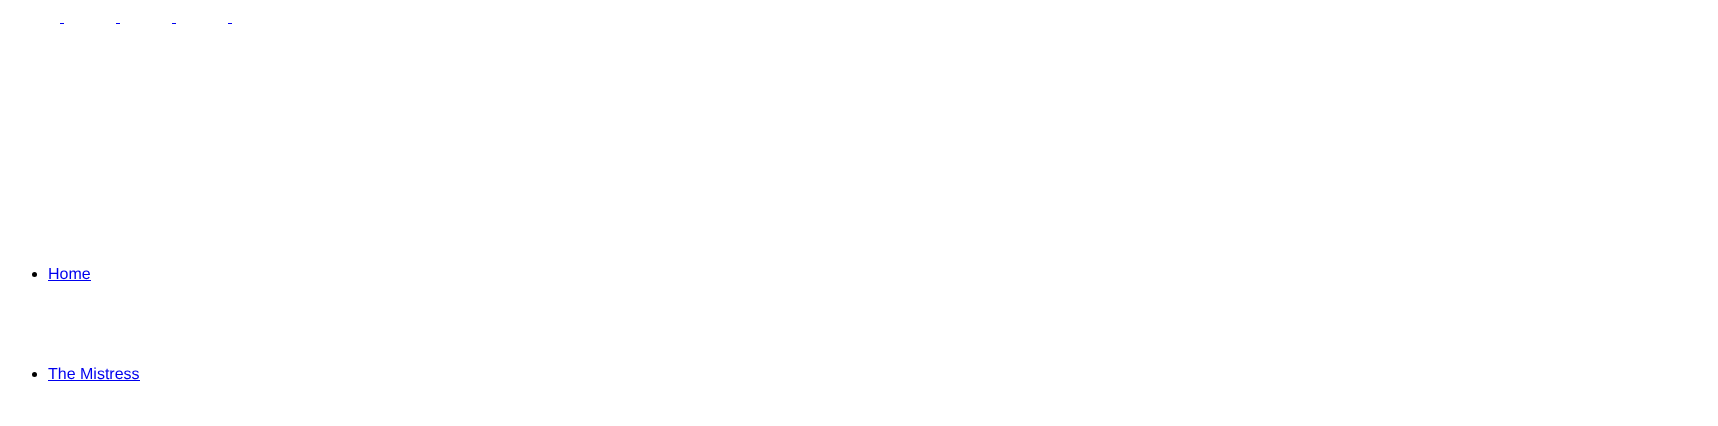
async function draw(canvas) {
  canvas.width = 1718;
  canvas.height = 426;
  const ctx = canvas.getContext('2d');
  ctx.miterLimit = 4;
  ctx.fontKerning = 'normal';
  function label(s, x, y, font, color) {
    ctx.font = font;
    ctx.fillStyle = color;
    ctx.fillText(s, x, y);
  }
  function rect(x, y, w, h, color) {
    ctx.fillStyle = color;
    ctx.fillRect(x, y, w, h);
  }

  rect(0, 0, 1718, 426, '#fff');
  rect(60, 23, 4, 1, '#00e');
  rect(116, 23, 4, 1, '#00e');
  rect(172, 23, 4, 1, '#00e');
  rect(228, 23, 4, 1, '#00e');
  ctx.fillStyle = '#000';
  ctx.beginPath();
  ctx.arc(34.5, 274.5, 2.5, 0, 2 * Math.PI);
  ctx.fill();
  label('Home', 48, 279, '16px Liberation Sans', '#00e');
  rect(48, 280, 43, 1, '#00e');
  ctx.fillStyle = '#000';
  ctx.beginPath();
  ctx.arc(34.5, 374.5, 2.5, 0, 2 * Math.PI);
  ctx.fill();
  label('The Mistress', 48, 379, '16px Liberation Sans', '#00e');
  rect(48, 380, 92, 1, '#00e');
}

draw(document.querySelector('canvas'));
